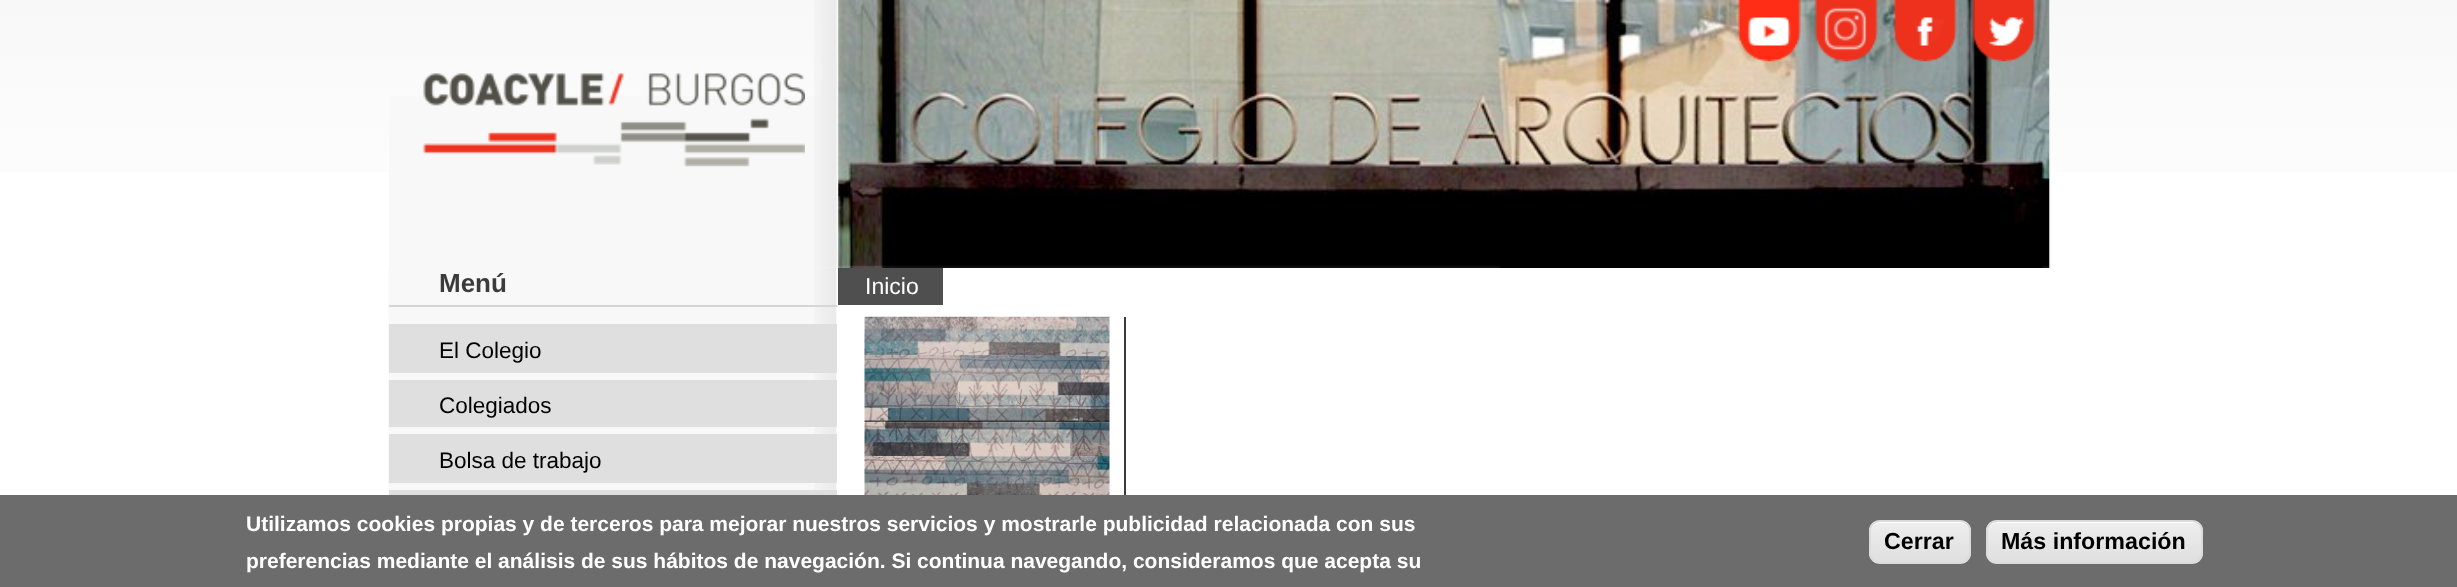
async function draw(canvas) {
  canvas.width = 2457;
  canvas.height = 587;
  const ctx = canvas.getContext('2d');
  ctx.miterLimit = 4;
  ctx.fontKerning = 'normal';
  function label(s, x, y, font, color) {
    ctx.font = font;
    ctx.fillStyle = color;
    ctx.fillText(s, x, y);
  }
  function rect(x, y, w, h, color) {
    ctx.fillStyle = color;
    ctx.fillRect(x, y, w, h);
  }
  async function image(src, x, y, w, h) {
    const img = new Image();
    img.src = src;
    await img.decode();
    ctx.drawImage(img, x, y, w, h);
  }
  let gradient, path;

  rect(0, 0, 2457, 587, '#fff');
  gradient = ctx.createLinearGradient(1229, 0, 1229, 268);
  gradient.addColorStop(0, '#f8f8f8');
  gradient.addColorStop(1, '#fff');
  ctx.fillStyle = gradient;
  ctx.fillRect(0, 0, 2457, 172);
  rect(389, 96, 1662, 172, '#f8f8f8');
  await image('assets/img1.png', 814, 0, 23, 268);
  await image('assets/img2.png', 838, 0, 1212, 268);
  await image('assets/img3.png', 1737, 0, 64, 62);
  await image('assets/img4.png', 1814, 0, 64, 62);
  await image('assets/img5.png', 1893, 0, 64, 62);
  await image('assets/img6.png', 1972, 0, 64, 62);
  await image('assets/img7.png', 423, 73, 382, 94);
  await image('assets/img8.png', 388, 267, 1, 228);
  rect(389, 268, 448, 222, '#f8f8f8');
  await image('assets/img9.png', 814, 268, 22, 222);
  rect(389, 305, 448, 2, '#d6d6d6');
  label('Menú', 439, 292, 'bold 26px Liberation Sans', '#3b3b3b');
  rect(389, 324, 448, 49, '#dfdfdf');
  label('El Colegio', 439, 358, '22.5px Liberation Sans', '#000');
  rect(389, 380, 448, 47, '#dfdfdf');
  label('Colegiados', 439, 413, '22.5px Liberation Sans', '#000');
  rect(389, 434, 448, 49, '#dfdfdf');
  label('Bolsa de trabajo', 439, 468, '22.5px Liberation Sans', '#000');
  rect(389, 490, 448, 5, '#dfdfdf');
  rect(838, 268, 105, 37, '#4f4f4f');
  label('Inicio', 865, 294, '23px Liberation Sans', '#fff');
  rect(1124, 317, 2, 178, '#3b3b3b');
  await image('assets/img10.png', 864, 316, 246, 179);
  rect(0, 495, 2457, 92, '#6c6c6c');
  label('Utilizamos cookies propias y de terceros para mejorar nuestros servicios y mostrarle publicidad relacionada con sus', 246, 531, 'bold 21px Liberation Sans', '#fff');
  label('preferencias mediante el análisis de sus hábitos de navegación. Si continua navegando, consideramos que acepta su', 246, 568, 'bold 21px Liberation Sans', '#fff');
  ctx.save();
  ctx.beginPath();
  ctx.roundRect(1869, 520, 102, 44, 11);
  ctx.clip();
  gradient = ctx.createLinearGradient(1920, 522, 1920, 562);
  gradient.addColorStop(0.05, '#ededed');
  gradient.addColorStop(1, '#dfdfdf');
  ctx.fillStyle = gradient;
  ctx.fillRect(1869, 522, 102, 40);
  ctx.restore();
  path = new Path2D('M1880 523H1960C1965 523 1969 527 1969 532C1969 519 1956 522 1947 522H1893C1884 522 1871 519 1871 532C1871 527 1875 523 1880 523Z');
  ctx.fill(path);
  ctx.beginPath();
  ctx.roundRect(1870, 521, 100, 42, 10);
  ctx.strokeStyle = '#dcdcdc';
  ctx.lineWidth = 2;
  ctx.stroke();
  label('Cerrar', 1884, 549, 'bold 23.25px Liberation Sans', '#000');
  ctx.save();
  ctx.beginPath();
  ctx.roundRect(1986, 520, 217, 44, 11);
  ctx.clip();
  gradient = ctx.createLinearGradient(2095, 522, 2095, 562);
  gradient.addColorStop(0.05, '#ededed');
  gradient.addColorStop(1, '#dfdfdf');
  ctx.fillStyle = gradient;
  ctx.fillRect(1986, 522, 217, 40);
  ctx.restore();
  ctx.fillStyle = '#fff';
  path = new Path2D('M1997 523H2193C2198 523 2202 527 2202 532V531C2202 526 2198 522 2193 522H1997C1992 522 1988 526 1988 531V532C1988 527 1992 523 1997 523Z');
  ctx.fill(path);
  ctx.beginPath();
  ctx.roundRect(1987, 521, 215, 42, 10);
  ctx.stroke();
  label('Más información', 2001, 549, 'bold 23.25px Liberation Sans', '#000');
}

draw(document.querySelector('canvas'));
